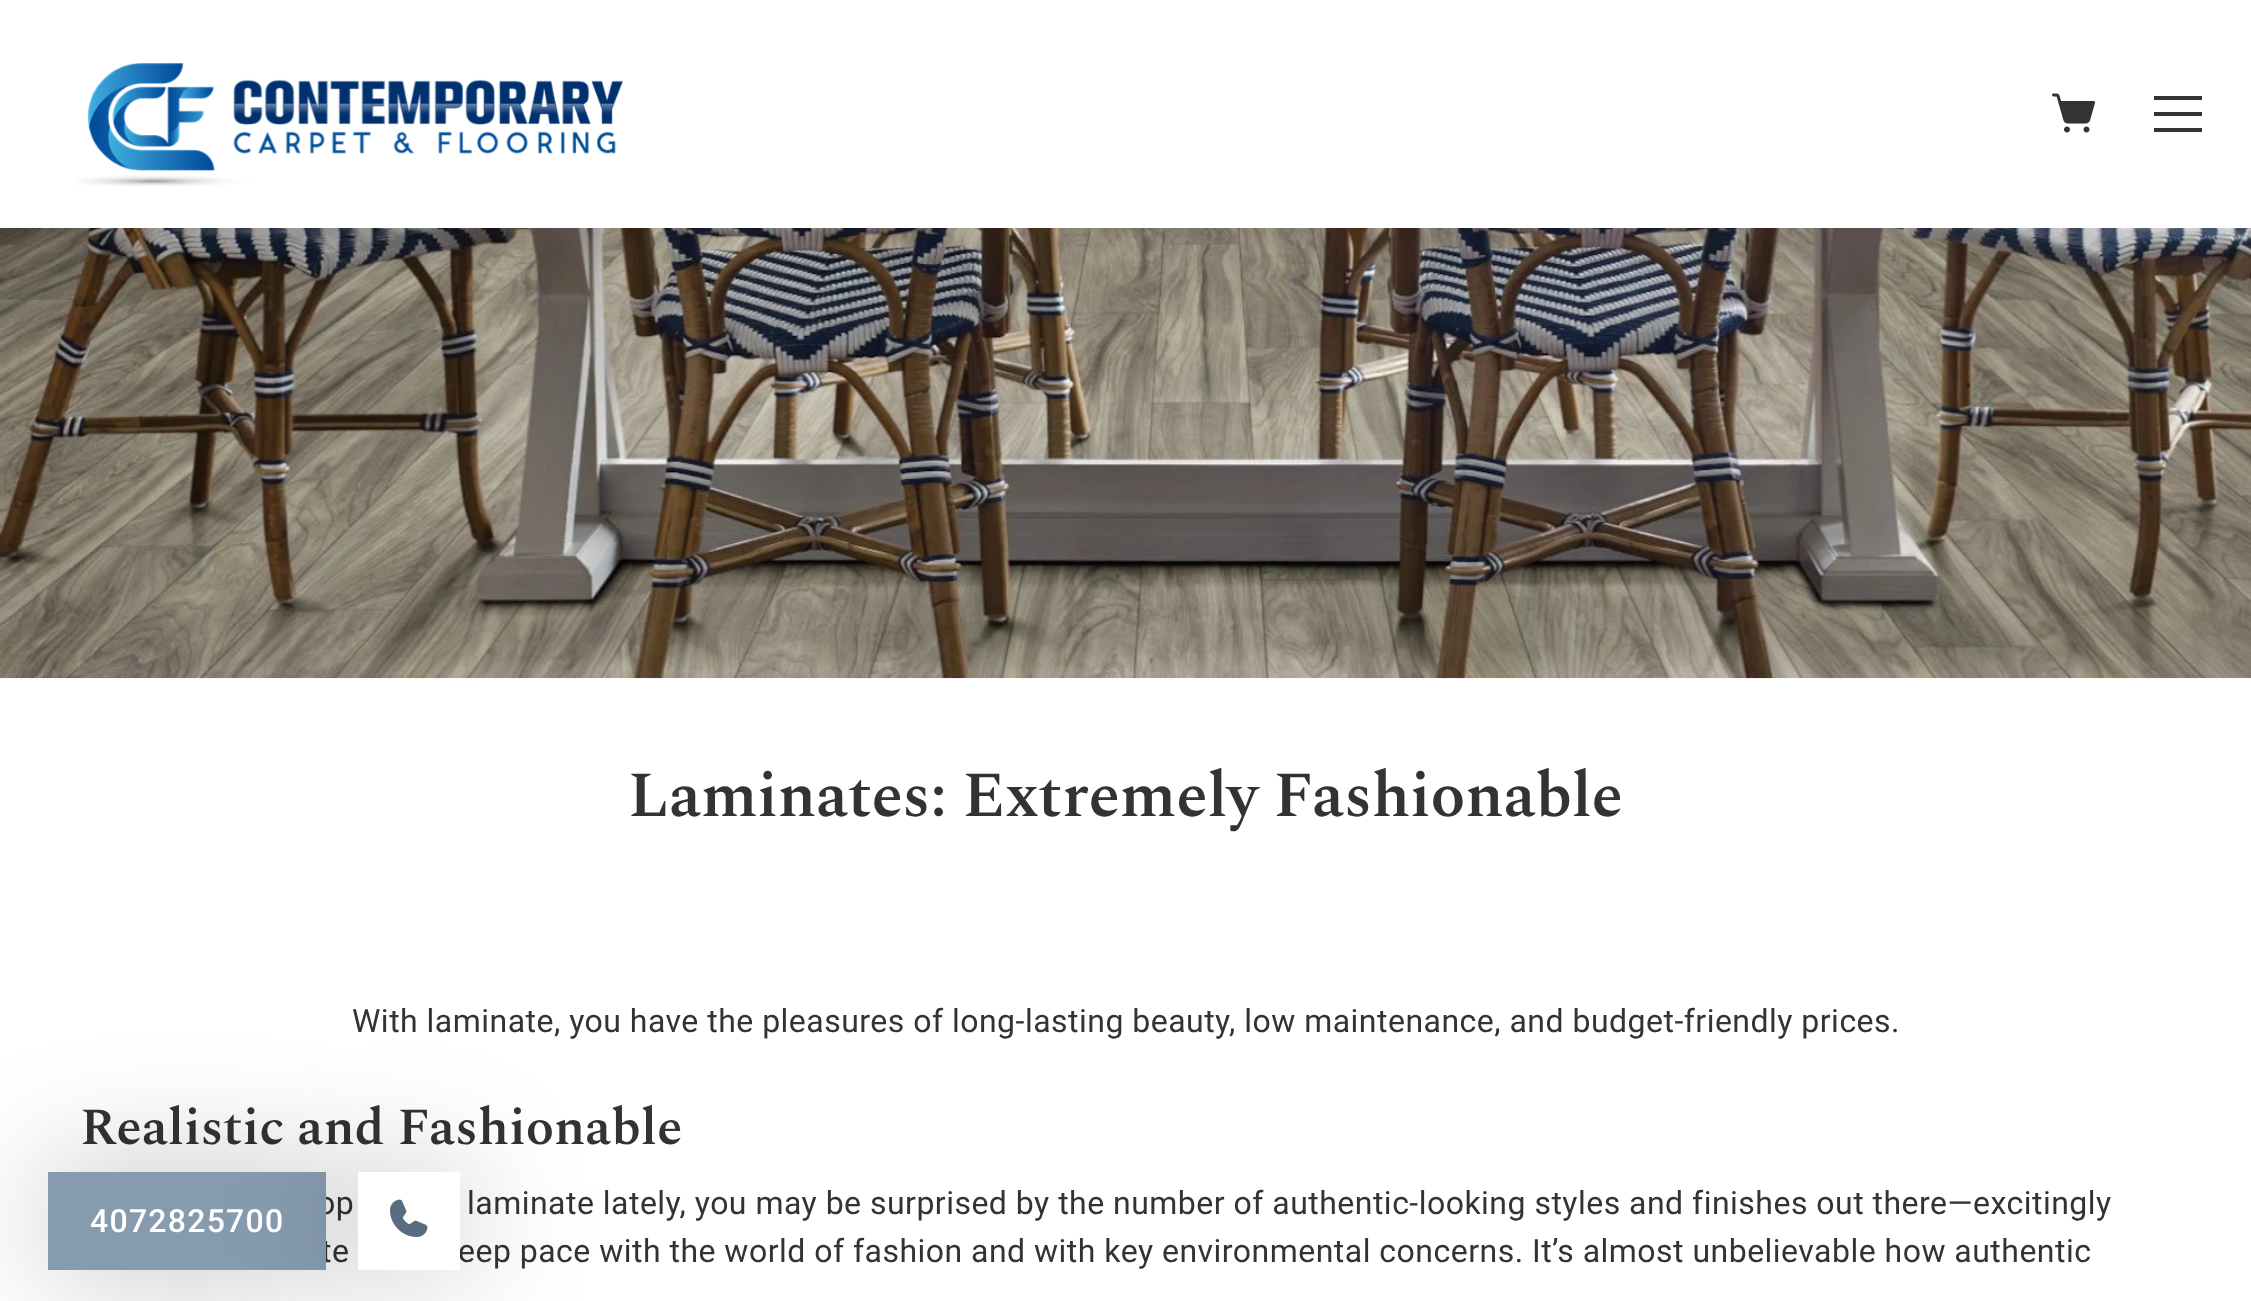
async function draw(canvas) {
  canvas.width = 2251;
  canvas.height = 1301;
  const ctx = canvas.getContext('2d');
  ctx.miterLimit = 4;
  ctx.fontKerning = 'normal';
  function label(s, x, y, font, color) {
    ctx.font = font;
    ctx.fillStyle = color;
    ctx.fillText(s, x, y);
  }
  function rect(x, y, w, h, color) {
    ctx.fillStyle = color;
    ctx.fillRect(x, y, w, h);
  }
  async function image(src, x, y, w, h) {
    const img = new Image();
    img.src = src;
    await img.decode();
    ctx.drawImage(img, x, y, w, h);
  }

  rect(0, 0, 2251, 1301, '#fff');
  await image('assets/img1.png', 0, 228, 2251, 451);
  ctx.letterSpacing = '-0.2px';
  label('Laminates: Extremely Fashionable', 628, 816, '600 64px Spectral', '#333');
  ctx.letterSpacing = '0.48px';
  label('With laminate, you have the pleasures of long-lasting beauty, low maintenance, and budget-friendly prices.', 352, 1032, '32px Roboto', '#333');
  ctx.letterSpacing = '-0.05px';
  label('Realistic and Fashionable', 80, 1144, '600 52px Spectral', '#333');
  ctx.letterSpacing = '0.48px';
  label('op', 317, 1214, '32px Roboto', '#333');
  label('laminate lately, you may be surprised by the number of authentic-looking styles and finishes out there—excitingly', 467, 1214, '32px Roboto', '#333');
  label('te', 321, 1262, '32px Roboto', '#333');
  label('eep pace with the world of fashion and with key environmental concerns. It’s almost unbelievable how authentic', 458, 1262, '32px Roboto', '#333');
  await image('assets/img2.png', 76, 63, 547, 123);
  await image('assets/img3.png', 2052, 93, 44, 40);
  rect(2154, 112, 48, 4, '#333');
  rect(2154, 96, 48, 4, '#333');
  rect(2154, 128, 48, 4, '#333');
  ctx.fillStyle = '#00000040';
  ctx.filter = 'blur(64px)';
  ctx.beginPath();
  ctx.rect(48, 1172, 278, 98);
  ctx.fill();
  ctx.filter = 'none';
  rect(48, 1172, 278, 98, '#869bae');
  ctx.fillStyle = '#00000040';
  ctx.filter = 'blur(64px)';
  ctx.beginPath();
  ctx.rect(358, 1172, 102, 98);
  ctx.fill();
  ctx.filter = 'none';
  rect(358, 1172, 102, 98, '#fff');
  await image('assets/img4.png', 390, 1199, 38, 38);
  ctx.letterSpacing = '1.25px';
  label('4072825700', 90, 1232, '500 32px Roboto', '#fff');
}

draw(document.querySelector('canvas'));
